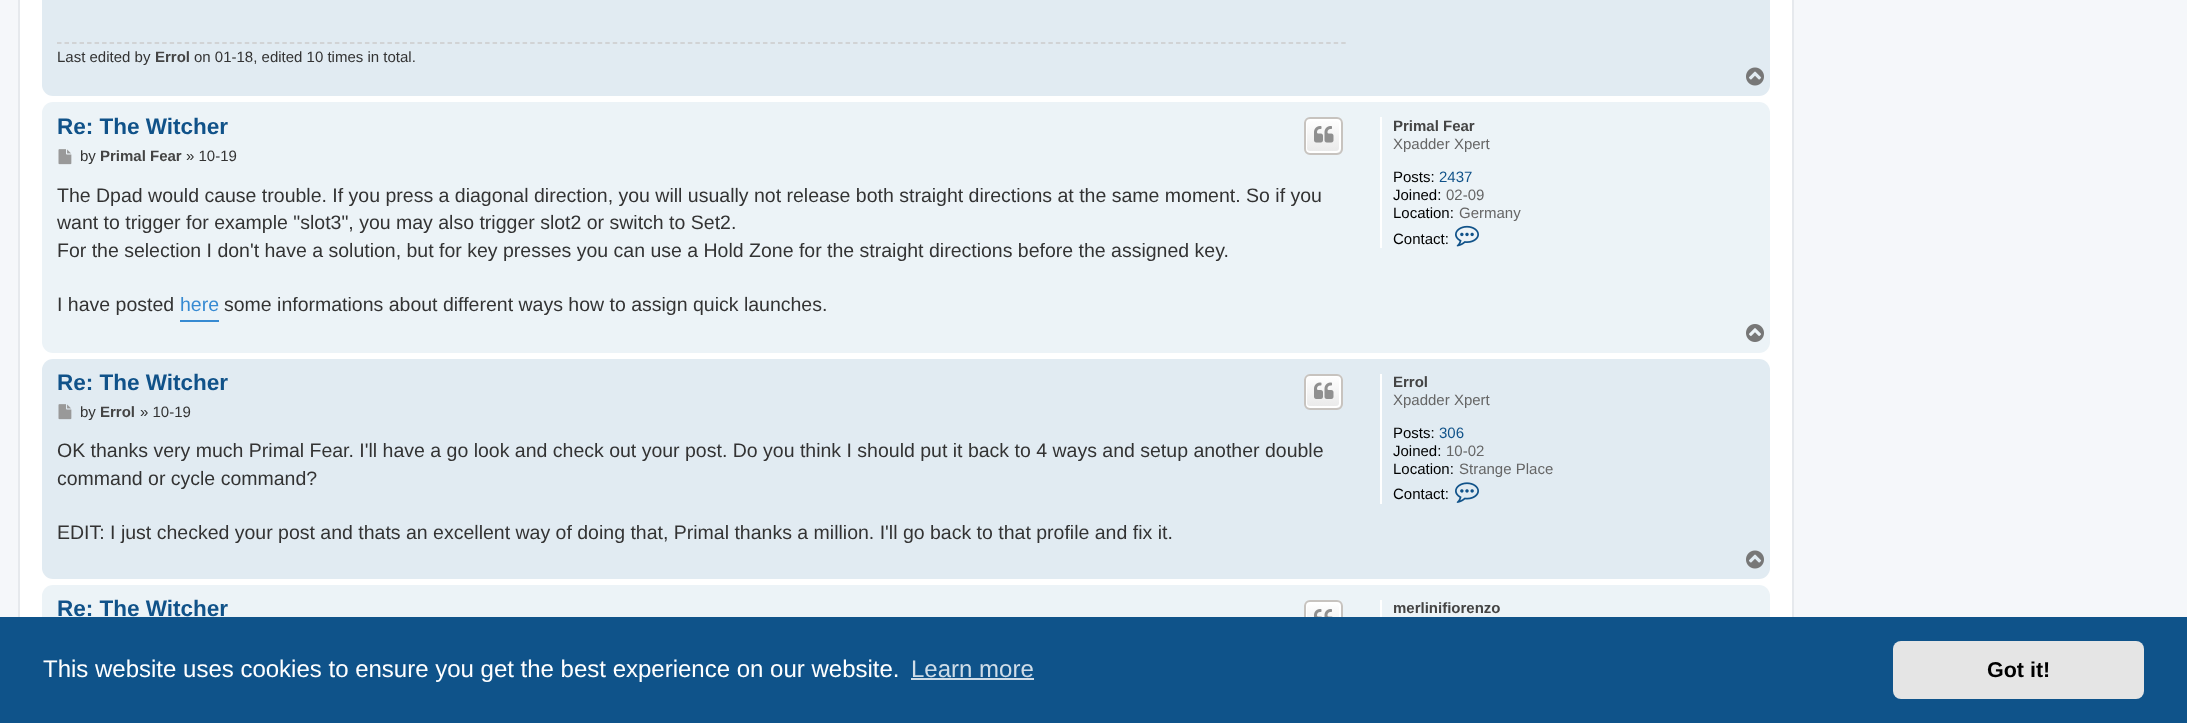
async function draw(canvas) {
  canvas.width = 2187;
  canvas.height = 723;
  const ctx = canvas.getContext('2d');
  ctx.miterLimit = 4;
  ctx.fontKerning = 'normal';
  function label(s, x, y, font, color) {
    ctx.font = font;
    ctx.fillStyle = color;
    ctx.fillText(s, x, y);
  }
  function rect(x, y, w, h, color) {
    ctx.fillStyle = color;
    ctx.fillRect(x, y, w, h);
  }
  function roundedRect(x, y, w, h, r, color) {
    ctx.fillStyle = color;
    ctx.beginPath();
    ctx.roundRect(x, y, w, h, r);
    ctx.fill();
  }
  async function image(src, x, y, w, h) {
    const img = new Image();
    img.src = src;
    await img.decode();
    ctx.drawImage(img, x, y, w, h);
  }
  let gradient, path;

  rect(0, 0, 2187, 723, '#f5f7fa');
  rect(20, 0, 1772, 617, '#fff');
  ctx.strokeStyle = '#e6e9ed';
  ctx.lineWidth = 2;
  ctx.strokeRect(19, -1, 1774, 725);
  roundedRect(42, -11, 1728, 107, 11, '#e1ebf2');
  path = new Path2D('M57 43H1347');
  ctx.strokeStyle = '#ccc';
  ctx.lineWidth = 1.5;
  ctx.setLineDash([4.5, 3.01]);
  ctx.stroke(path);
  label('Last edited by', 57, 62, '15px Liberation Sans', '#333');
  label('Errol', 155, 62, 'bold 15px Liberation Sans', '#444');
  label('on 01-18, edited 10 times in total.', 194, 62, '15px Liberation Sans', '#333');
  await image('assets/img1.png', 1746, 67, 18, 19);
  roundedRect(42, 102, 1728, 251, 11, '#ecf3f7');
  label('Re: The Witcher', 57, 134, 'bold 22.5px Liberation Sans', '#105289');
  ctx.save();
  ctx.beginPath();
  ctx.roundRect(1304, 117, 39, 38, 6);
  ctx.clip();
  gradient = ctx.createLinearGradient(1323, 119, 1323, 153);
  gradient.addColorStop(0, '#fff');
  gradient.addColorStop(1, '#e9e9e9');
  ctx.fillStyle = gradient;
  ctx.fillRect(1304, 119, 39, 34);
  ctx.restore();
  ctx.beginPath();
  ctx.roundRect(1306, 120, 34, 32, 4);
  ctx.strokeStyle = '#fff';
  ctx.lineWidth = 2;
  ctx.setLineDash([]);
  ctx.stroke();
  ctx.beginPath();
  ctx.roundRect(1305, 118, 37, 36, 5);
  ctx.strokeStyle = '#c7c3bf';
  ctx.stroke();
  await image('assets/img2.png', 1314, 126, 20, 17);
  await image('assets/img3.png', 58, 149, 14, 16);
  label('by', 80, 161, '15px Liberation Sans', '#333');
  label('Primal Fear', 100, 161, 'bold 15px Liberation Sans', '#444');
  label('» 10-19', 186, 161, '15px Liberation Sans', '#333');
  label('The Dpad would cause trouble. If you press a diagonal direction, you will usually not release both straight directions at the same moment. So if you', 57, 202, '19.5px Liberation Sans', '#333');
  label('want to trigger for example "slot3", you may also trigger slot2 or switch to Set2.', 57, 229, '19.5px Liberation Sans', '#333');
  label('For the selection I don\'t have a solution, but for key presses you can use a Hold Zone for the straight directions before the assigned key.', 57, 257, '19.5px Liberation Sans', '#333');
  label('I have posted', 57, 311, '19.5px Liberation Sans', '#333');
  rect(180, 320, 39, 2, '#368ad2');
  label('here', 180, 311, '19.5px Liberation Sans', '#368ad2');
  label('some informations about different ways how to assign quick launches.', 224, 311, '19.5px Liberation Sans', '#333');
  rect(1380, 117, 2, 131, '#fff');
  label('Primal Fear', 1393, 131, 'bold 15px Liberation Sans', '#444');
  label('Xpadder Xpert', 1393, 149, '15px Liberation Sans', '#666');
  label('Posts:', 1393, 182, '15px Liberation Sans', '#000');
  label('2437', 1439, 182, '15px Liberation Sans', '#105289');
  label('Joined:', 1393, 200, '15px Liberation Sans', '#000');
  label('02-09', 1446, 200, '15px Liberation Sans', '#666');
  label('Location:', 1393, 218, '15px Liberation Sans', '#000');
  label('Germany', 1459, 218, '15px Liberation Sans', '#666');
  label('Contact:', 1393, 244, '15px Liberation Sans', '#000');
  await image('assets/img4.png', 1455, 225, 24, 22);
  await image('assets/img5.png', 1746, 324, 18, 18);
  roundedRect(42, 359, 1728, 220, 11, '#e1ebf2');
  label('Re: The Witcher', 57, 390, 'bold 22.5px Liberation Sans', '#105289');
  ctx.save();
  ctx.beginPath();
  ctx.roundRect(1304, 374, 39, 36, 6);
  ctx.clip();
  gradient = ctx.createLinearGradient(1323, 375, 1323, 408);
  gradient.addColorStop(0, '#fff');
  gradient.addColorStop(1, '#e9e9e9');
  ctx.fillStyle = gradient;
  ctx.fillRect(1304, 375, 39, 33);
  ctx.restore();
  ctx.beginPath();
  ctx.roundRect(1306, 376, 34, 31, 4);
  ctx.strokeStyle = '#fff';
  ctx.stroke();
  ctx.beginPath();
  ctx.roundRect(1305, 375, 37, 34, 5);
  ctx.strokeStyle = '#c7c3bf';
  ctx.stroke();
  await image('assets/img6.png', 1314, 382, 20, 17);
  await image('assets/img7.png', 58, 404, 14, 16);
  label('by', 80, 417, '15px Liberation Sans', '#333');
  label('Errol', 100, 417, 'bold 15px Liberation Sans', '#444');
  label('» 10-19', 140, 417, '15px Liberation Sans', '#333');
  label('OK thanks very much Primal Fear. I\'ll have a go look and check out your post. Do you think I should put it back to 4 ways and setup another double', 57, 457, '19.5px Liberation Sans', '#333');
  label('command or cycle command?', 57, 485, '19.5px Liberation Sans', '#333');
  label('EDIT: I just checked your post and thats an excellent way of doing that, Primal thanks a million. I\'ll go back to that profile and fix it.', 57, 539, '19.5px Liberation Sans', '#333');
  rect(1380, 374, 2, 130, '#fff');
  label('Errol', 1393, 387, 'bold 15px Liberation Sans', '#444');
  label('Xpadder Xpert', 1393, 405, '15px Liberation Sans', '#666');
  label('Posts:', 1393, 438, '15px Liberation Sans', '#000');
  label('306', 1439, 438, '15px Liberation Sans', '#105289');
  label('Joined:', 1393, 456, '15px Liberation Sans', '#000');
  label('10-02', 1446, 456, '15px Liberation Sans', '#666');
  label('Location:', 1393, 474, '15px Liberation Sans', '#000');
  label('Strange Place', 1459, 474, '15px Liberation Sans', '#666');
  label('Contact:', 1393, 499, '15px Liberation Sans', '#000');
  await image('assets/img8.png', 1455, 482, 24, 21);
  await image('assets/img1.png', 1746, 550, 18, 19);
  roundedRect(42, 585, 1728, 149, 11, '#ecf3f7');
  label('Re: The Witcher', 57, 616, 'bold 22.5px Liberation Sans', '#105289');
  ctx.save();
  ctx.beginPath();
  ctx.roundRect(1304, 600, 39, 36, 6);
  ctx.clip();
  gradient = ctx.createLinearGradient(1323, 602, 1323, 635);
  gradient.addColorStop(0, '#fff');
  gradient.addColorStop(1, '#e9e9e9');
  ctx.fillStyle = gradient;
  ctx.fillRect(1304, 602, 39, 15);
  ctx.restore();
  ctx.beginPath();
  ctx.roundRect(1306, 603, 34, 31, 4);
  ctx.strokeStyle = '#fff';
  ctx.stroke();
  ctx.beginPath();
  ctx.roundRect(1305, 601, 37, 34, 5);
  ctx.strokeStyle = '#c7c3bf';
  ctx.stroke();
  await image('assets/img9.png', 1314, 609, 19, 8);
  rect(1380, 600, 2, 17, '#fff');
  label('merlinifiorenzo', 1393, 613, 'bold 15px Liberation Sans', '#444');
  rect(0, 617, 2187, 106, '#0f538a');
  label('This website uses cookies to ensure you get the best experience on our website.', 43, 677, '24px Liberation Sans', '#fff');
  label('Learn more', 911, 677, '24px Liberation Sans', '#cfdde8');
  rect(911, 678, 123, 2, '#cfdde8');
  roundedRect(1893, 641, 251, 58, 8, '#e5e5e5');
  label('Got it!', 1987, 677, 'bold 21.5px Liberation Sans', '#000');
}

draw(document.querySelector('canvas'));
